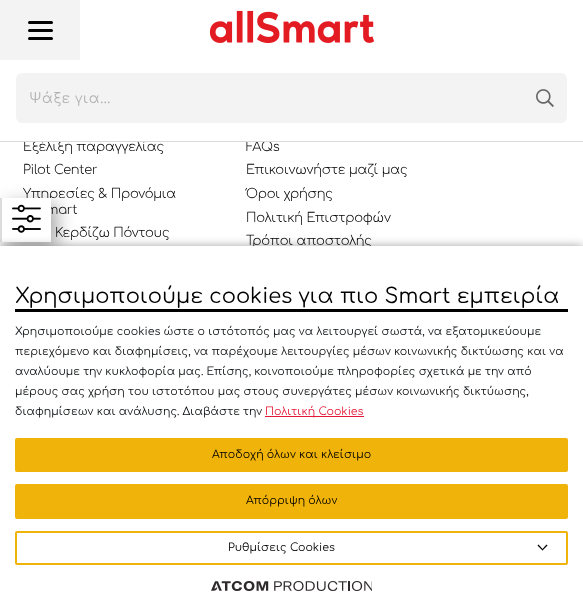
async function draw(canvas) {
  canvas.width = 583;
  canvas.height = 615;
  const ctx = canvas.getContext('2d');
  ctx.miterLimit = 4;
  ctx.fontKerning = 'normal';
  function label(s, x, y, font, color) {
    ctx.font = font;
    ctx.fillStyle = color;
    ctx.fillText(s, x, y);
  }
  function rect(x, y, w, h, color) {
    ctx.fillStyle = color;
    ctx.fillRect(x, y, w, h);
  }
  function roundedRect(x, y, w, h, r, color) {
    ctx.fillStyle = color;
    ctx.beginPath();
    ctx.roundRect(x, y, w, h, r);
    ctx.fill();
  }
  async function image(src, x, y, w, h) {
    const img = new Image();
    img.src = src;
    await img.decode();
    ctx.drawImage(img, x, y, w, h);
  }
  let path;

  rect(0, 0, 583, 615, '#fff');
  ctx.letterSpacing = '-0.25px';
  label('Εξέλιξη παραγγελίας', 23, 151, '300 13px Comfortaa', '#000');
  label('FAQs', 246, 151, '300 13px Comfortaa', '#000');
  rect(24, 140, 245, 1, '#fff');
  rect(0, 141, 583, 1, '#d9d9d9');
  rect(0, 0, 80, 60, '#f3f3f3');
  roundedRect(28, 37, 25, 3, 1.5, '#000');
  roundedRect(28, 21, 25, 3, 1.5, '#000');
  roundedRect(28, 29, 25, 3, 1.5, '#000');
  await image('assets/img1.png', 210, 10, 164, 33);
  roundedRect(16, 73, 551, 50, 6, '#f3f3f3');
  ctx.letterSpacing = '0.5px';
  label('Ψάξε για...', 29, 103, '14px Comfortaa', '#b2b2b2');
  await image('assets/img2.png', 536, 89, 18, 18);
  ctx.letterSpacing = '-0.25px';
  label('Pilot Center', 23, 174, '300 13px Comfortaa', '#000');
  label('Υπηρεσίες & Προνόμια', 23, 198, '300 13px Comfortaa', '#000');
  label('mart', 46, 214, '300 13px Comfortaa', '#000');
  label('Κερδίζω Πόντους', 55, 237, '300 13px Comfortaa', '#000');
  label('Επικοινωνήστε μαζί μας', 246, 174, '300 13px Comfortaa', '#000');
  label('Όροι χρήσης', 246, 198, '300 13px Comfortaa', '#000');
  label('Πολιτική Επιστροφών', 246, 222, '300 13px Comfortaa', '#000');
  label('Τρόποι αποστολής', 246, 245, '300 13px Comfortaa', '#000');
  ctx.fillStyle = '#00000057';
  ctx.filter = 'blur(9px)';
  ctx.beginPath();
  ctx.rect(6, 204, 51, 44);
  ctx.fill();
  ctx.filter = 'none';
  rect(2, 198, 49, 44, '#fff');
  rect(0, 198, 2, 44, '#dcdcdc');
  await image('assets/img3.png', 12, 204, 29, 29);
  ctx.fillStyle = '#0000005e';
  ctx.filter = 'blur(5px)';
  ctx.beginPath();
  ctx.rect(0, 246, 583, 369);
  ctx.fill();
  ctx.filter = 'none';
  rect(0, 246, 583, 369, '#fff');
  rect(15, 309, 553, 3, '#000');
  ctx.letterSpacing = '0px';
  label('Χρησιμοποιούμε cookies για πιο Smart εμπειρία', 15, 303, '21px Comfortaa', '#000');
  label('Χρησιμοποιούμε cookies ώστε ο ιστότοπός μας να λειτουργεί σωστά, να εξατομικεύουμε', 15, 335, '11px Comfortaa', '#0d1012');
  label('περιεχόμενο και διαφημίσεις, να παρέχουμε λειτουργίες μέσων κοινωνικής δικτύωσης και να', 15, 355, '11px Comfortaa', '#0d1012');
  label('αναλύουμε την κυκλοφορία μας. Επίσης, κοινοποιούμε πληροφορίες σχετικά με την από', 15, 375, '11px Comfortaa', '#0d1012');
  label('μέρους σας χρήση του ιστοτόπου μας στους συνεργάτες μέσων κοινωνικής δικτύωσης,', 15, 395, '11px Comfortaa', '#0d1012');
  label('διαφημίσεων και ανάλυσης. Διαβάστε την', 15, 415, '11px Comfortaa', '#0d1012');
  rect(265, 416, 99, 1, '#e51937');
  label('Πολιτική Cookies', 265, 415, '11px Comfortaa', '#e51937');
  ctx.fillStyle = '#f0b30a';
  ctx.beginPath();
  ctx.roundRect(16, 439, 551, 32, 1);
  ctx.fill();
  ctx.strokeStyle = '#f0b30a';
  ctx.lineWidth = 2;
  ctx.stroke();
  label('Αποδοχή όλων και κλείσιμο', 212, 458, '11px Comfortaa', '#000');
  ctx.fillStyle = '#f0b30a';
  ctx.beginPath();
  ctx.roundRect(16, 485, 551, 33, 1);
  ctx.fill();
  ctx.stroke();
  label('Απόρριψη όλων', 246, 504, '11px Comfortaa', '#000');
  ctx.beginPath();
  ctx.roundRect(16, 532, 551, 32, 1);
  ctx.stroke();
  label('Ρυθμίσεις Cookies', 228, 551, '11px Comfortaa', '#000');
  path = new Path2D('M546.5 544.5L547.5 545.5L542.5 550.5L542 549.5Z');
  ctx.fill(path);
  path = new Path2D('M538.5 544.5L543 549.5L542.5 550.5L537.5 545.5Z');
  ctx.fill(path);
  await image('assets/img4.png', 211, 581, 161, 10);
}

draw(document.querySelector('canvas'));
